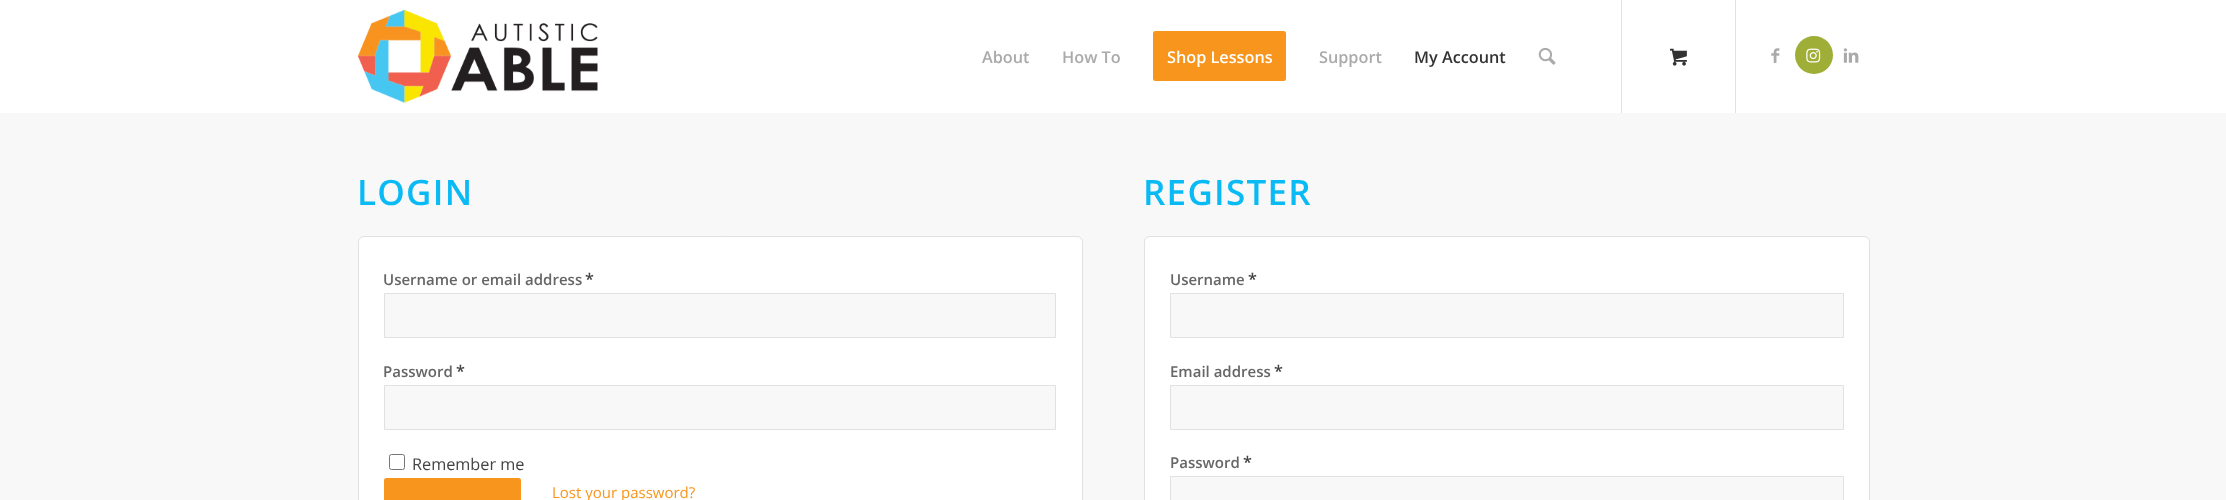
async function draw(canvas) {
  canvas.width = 2226;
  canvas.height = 500;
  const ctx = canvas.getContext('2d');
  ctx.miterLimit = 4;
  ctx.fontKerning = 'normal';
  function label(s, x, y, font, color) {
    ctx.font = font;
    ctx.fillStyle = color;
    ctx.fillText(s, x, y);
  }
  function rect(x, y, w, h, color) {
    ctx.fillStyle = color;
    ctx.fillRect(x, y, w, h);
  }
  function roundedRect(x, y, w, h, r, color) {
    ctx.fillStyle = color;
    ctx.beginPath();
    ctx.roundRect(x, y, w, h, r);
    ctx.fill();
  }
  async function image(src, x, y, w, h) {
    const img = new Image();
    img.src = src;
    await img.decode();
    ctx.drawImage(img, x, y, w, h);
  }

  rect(0, 0, 2226, 500, '#f8f8f8');
  rect(0, 0, 2226, 113, '#fff');
  await image('assets/img1.png', 357, 9, 241, 94);
  rect(1621, 0, 1, 113, '#e1e1e1');
  label('About', 982, 63, '600 16.25px Open Sans', '#aaa');
  label('How To', 1062, 63, '600 16.25px Open Sans', '#aaa');
  ctx.fillStyle = '#f7951d';
  ctx.beginPath();
  ctx.roundRect(1154.5, 32.5, 130, 47, 1);
  ctx.fill();
  ctx.strokeStyle = '#f7951d';
  ctx.lineWidth = 3;
  ctx.stroke();
  label('Shop Lessons', 1167, 63, '600 16.25px Open Sans', '#fff');
  label('Support', 1319, 63, '600 16.25px Open Sans', '#aaa');
  label('My Account', 1414, 63, '600 16.25px Open Sans', '#333');
  await image('assets/img2.png', 1538, 47, 18, 18);
  rect(1735, 0, 1, 113, '#e1e1e1');
  await image('assets/img3.png', 1670, 48, 17, 18);
  await image('assets/img4.png', 1771, 48, 9, 15);
  ctx.fillStyle = '#9fae37';
  ctx.beginPath();
  ctx.arc(1814, 55, 19, 0, 2 * Math.PI);
  ctx.fill();
  await image('assets/img5.png', 1806, 48, 15, 15);
  await image('assets/img6.png', 1843, 48, 16, 15);
  ctx.letterSpacing = '1.25px';
  label('LOGIN', 357, 205, '600 35px Open Sans', '#0abaf5');
  ctx.fillStyle = '#fff';
  ctx.beginPath();
  ctx.roundRect(358.5, 236.5, 724, 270, 5.5);
  ctx.fill();
  ctx.strokeStyle = '#e1e1e1';
  ctx.lineWidth = 1;
  ctx.stroke();
  ctx.letterSpacing = '0px';
  label('Username or email address', 383, 285, '600 15px Open Sans', '#666');
  label('*', 585, 285, '600 16.25px Open Sans', '#444');
  ctx.fillStyle = '#f8f8f8';
  ctx.beginPath();
  ctx.rect(384.5, 293.5, 671, 44);
  ctx.fill();
  ctx.stroke();
  label('Password', 383, 377, '600 15px Open Sans', '#666');
  label('*', 456, 377, '600 16.25px Open Sans', '#444');
  ctx.fillStyle = '#f8f8f8';
  ctx.beginPath();
  ctx.rect(384.5, 385.5, 671, 44);
  ctx.fill();
  ctx.stroke();
  ctx.beginPath();
  ctx.roundRect(389.5, 454.5, 15, 15, 2);
  ctx.strokeStyle = '#767676';
  ctx.stroke();
  label('Remember me', 412, 470, '16.25px Open Sans', '#444');
  roundedRect(384, 478, 137, 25, 2.5, '#f7951d');
  label('Lost your password?', 552, 498, '15px Open Sans', '#f7951d');
  ctx.letterSpacing = '1.25px';
  label('REGISTER', 1143, 205, '600 35px Open Sans', '#0abaf5');
  ctx.fillStyle = '#fff';
  ctx.beginPath();
  ctx.roundRect(1144.5, 236.5, 725, 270, 5.5);
  ctx.fill();
  ctx.strokeStyle = '#e1e1e1';
  ctx.stroke();
  ctx.letterSpacing = '0px';
  label('Username', 1170, 285, '600 15px Open Sans', '#666');
  label('*', 1248, 285, '600 16.25px Open Sans', '#444');
  ctx.fillStyle = '#f8f8f8';
  ctx.beginPath();
  ctx.rect(1170.5, 293.5, 673, 44);
  ctx.fill();
  ctx.stroke();
  label('Email address', 1170, 377, '600 15px Open Sans', '#666');
  label('*', 1274, 377, '600 16.25px Open Sans', '#444');
  ctx.fillStyle = '#f8f8f8';
  ctx.beginPath();
  ctx.rect(1170.5, 385.5, 673, 44);
  ctx.fill();
  ctx.stroke();
  label('Password', 1170, 468, '600 15px Open Sans', '#666');
  label('*', 1243, 468, '600 16.25px Open Sans', '#444');
  ctx.fillStyle = '#f8f8f8';
  ctx.beginPath();
  ctx.rect(1170.5, 476.5, 673, 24);
  ctx.fill();
  ctx.stroke();
}

draw(document.querySelector('canvas'));
